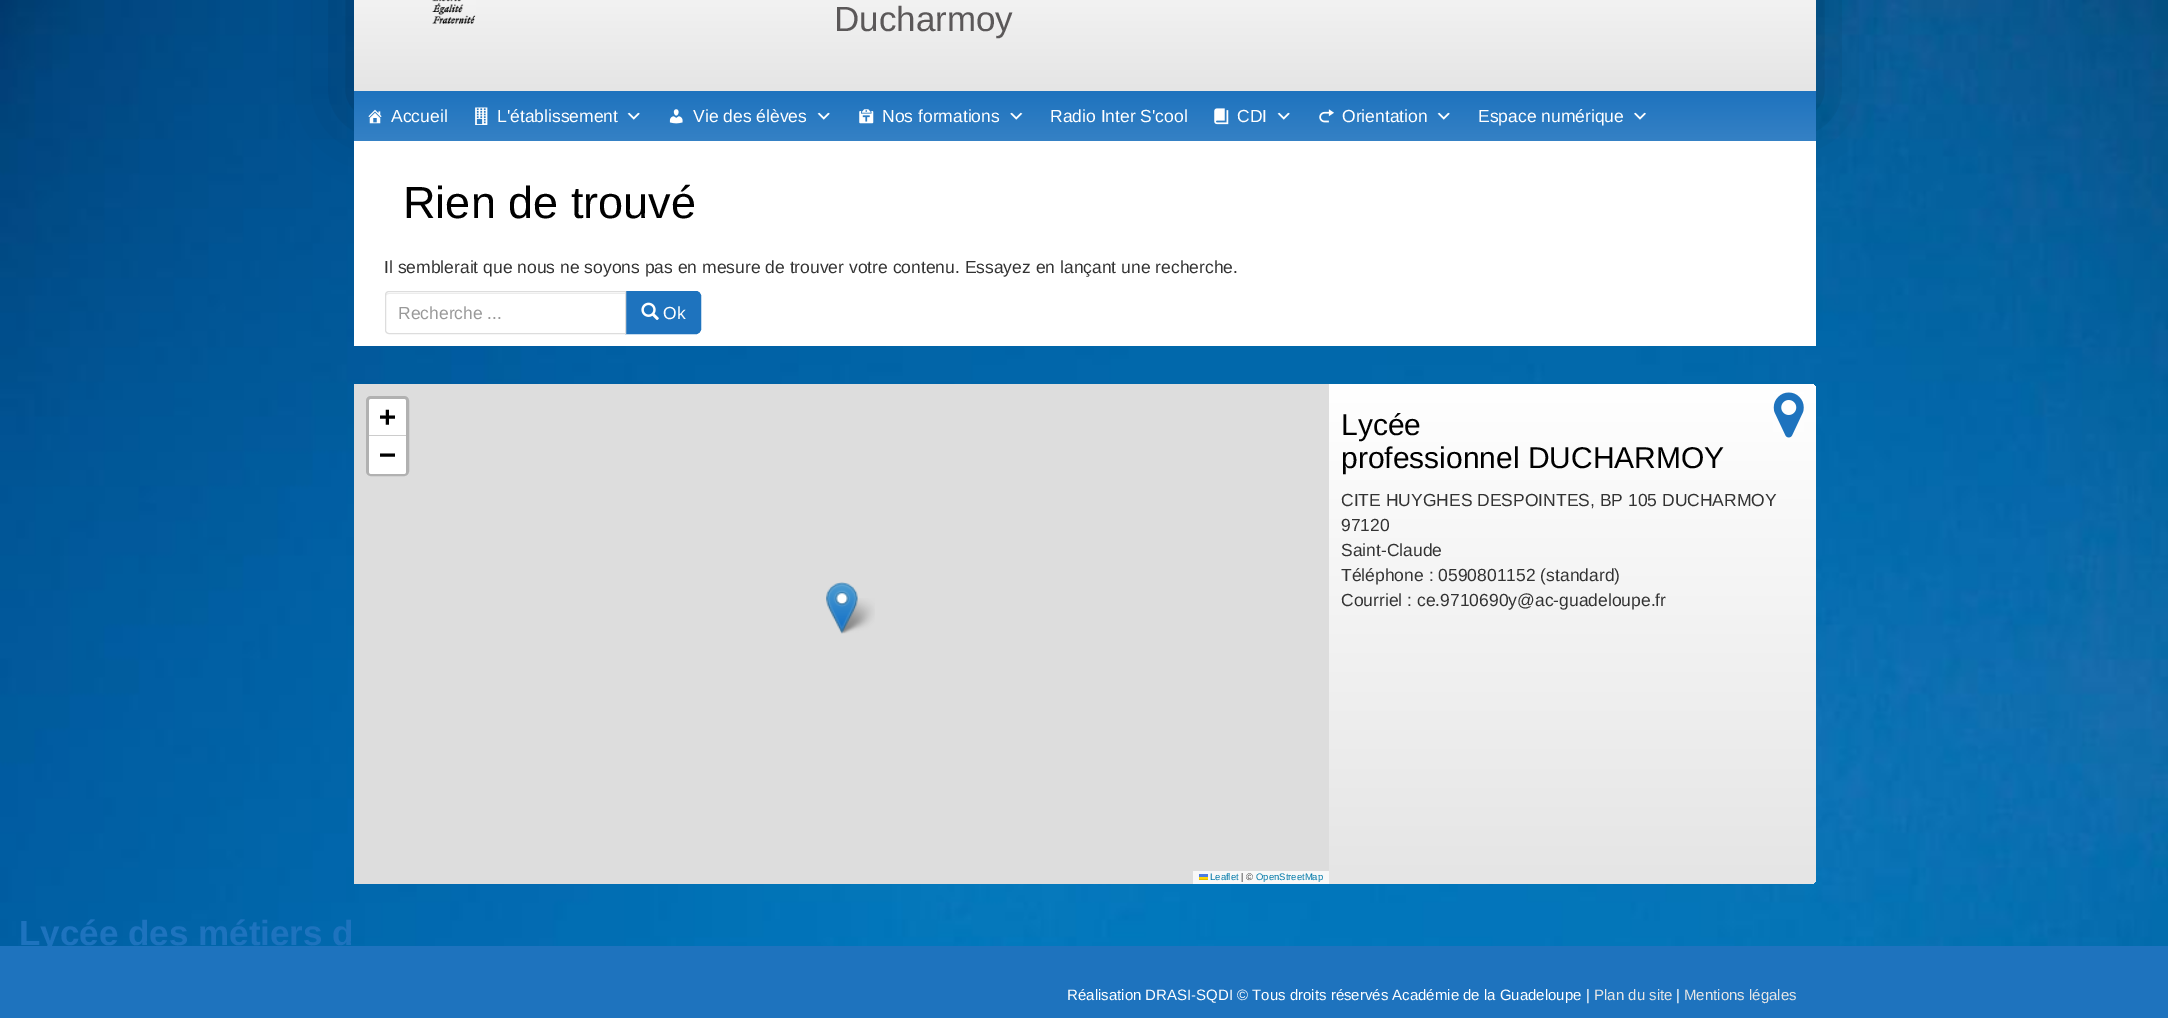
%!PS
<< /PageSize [2168 1018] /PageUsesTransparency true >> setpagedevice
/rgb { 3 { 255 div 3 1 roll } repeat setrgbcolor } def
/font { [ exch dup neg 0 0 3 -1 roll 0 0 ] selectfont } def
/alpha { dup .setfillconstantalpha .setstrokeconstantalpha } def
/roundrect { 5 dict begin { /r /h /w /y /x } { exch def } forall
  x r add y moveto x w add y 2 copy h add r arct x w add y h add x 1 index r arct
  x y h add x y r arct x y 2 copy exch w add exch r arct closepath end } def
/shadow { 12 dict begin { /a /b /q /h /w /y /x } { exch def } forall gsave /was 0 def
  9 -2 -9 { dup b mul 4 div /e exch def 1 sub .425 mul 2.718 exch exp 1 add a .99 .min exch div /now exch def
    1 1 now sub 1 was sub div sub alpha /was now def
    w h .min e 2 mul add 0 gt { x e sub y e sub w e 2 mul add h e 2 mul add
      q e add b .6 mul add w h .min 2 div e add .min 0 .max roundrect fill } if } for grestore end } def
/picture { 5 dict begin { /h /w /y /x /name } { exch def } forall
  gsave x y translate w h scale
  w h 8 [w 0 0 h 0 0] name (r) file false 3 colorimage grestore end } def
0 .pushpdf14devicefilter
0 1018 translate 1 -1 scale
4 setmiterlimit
255 255 255 rgb
0 0 2168 1018 rectfill
(img/1.rgb) 0 0 2168 946 picture
0 0 0 rgb
354 -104 1462 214 0 34.5 0.3 shadow
gsave 354 0 moveto 1816 0 lineto 1816 91 lineto 354 91 lineto closepath clip newpath
<< /ShadingType 2 /ColorSpace /DeviceRGB /Coords [1085 -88 1085 91] /Extend [true true] /Function << /FunctionType 2 /Domain [0 1] /C0 [1 1 1] /C1 [0.898 0.898 0.898] /N 1 >> >> shfill grestore
(img/2.rgb) 432 0 44 24 picture
gsave 354 91 moveto 1816 91 lineto 1816 141 lineto 354 141 lineto closepath clip newpath
<< /ShadingType 2 /ColorSpace /DeviceRGB /Coords [1085 91 1085 141] /Extend [true true] /Function << /FunctionType 2 /Domain [0 1] /C0 [0.118 0.451 0.745] /C1 [0.208 0.506 0.773] /N 1 >> >> shfill grestore
(img/3.rgb) 368 109 14 15 picture
(img/4.rgb) 475 107 13 18 picture
(img/5.rgb) 627 112 13 8 picture
(img/6.rgb) 669 109 14 15 picture
(img/5.rgb) 817 112 13 8 picture
(img/7.rgb) 859 109 15 15 picture
(img/8.rgb) 1010 112 13 8 picture
(img/9.rgb) 1214 108 15 17 picture
(img/5.rgb) 1277 112 13 8 picture
(img/10.rgb) 1319 109 15 14 picture
(img/5.rgb) 1437 112 13 8 picture
(img/11.rgb) 1634 112 12 8 picture
255 255 255 rgb
354 141 1462 205 rectfill
30 115 190 rgb
625.5 291.5 moveto 696 291.5 lineto 698.5 291.5 700.5 293.5 700.5 296 curveto 700.5 329 lineto 700.5 331.5 698.5 333.5 696 333.5 curveto 625.5 333.5 lineto closepath gsave fill grestore
stroke
255 255 255 rgb
389 291 moveto 626 291 lineto 626 334 lineto 389 334 lineto 387 334 385 332 385 330 curveto 385 295 lineto 385 293 387 291 389 291 curveto closepath fill
236 236 236 rgb
389 294 moveto 625 294 lineto 625 293 lineto 388 293 lineto 386 294 lineto 386 296 lineto 386 295 387 294 389 294 curveto closepath fill
221 221 221 rgb
389 291.5 moveto 625.5 291.5 lineto 625.5 333.5 lineto 389 333.5 lineto 387 333.5 385.5 332 385.5 330 curveto 385.5 295 lineto 385.5 293 387 291.5 389 291.5 curveto closepath stroke
(img/12.rgb) 641 302 18 18 picture
gsave 354 384 1462 500 6 roundrect clip newpath
<< /ShadingType 2 /ColorSpace /DeviceRGB /Coords [1085 384 1085 884] /Extend [true true] /Function << /FunctionType 2 /Domain [0 1] /C0 [1 1 1] /C1 [0.898 0.898 0.898] /N 1 >> >> shfill grestore
354 384 975 500 rectfill
177 177 177 rgb
3 setlinewidth
367.5 397.5 40 77 3.5 roundrect stroke
255 255 255 rgb
371.5 399 moveto 403.5 399 lineto 405 399 406 400 406 401.5 curveto 406 436 lineto 369 436 lineto 369 401.5 lineto 369 400 370 399 371.5 399 curveto closepath fill
204 204 204 rgb
369 435 37 1 rectfill
255 255 255 rgb
369 436 moveto 406 436 lineto 406 471.5 lineto 406 473 405 474 403.5 474 curveto 371.5 474 lineto 370 474 369 473 369 471.5 curveto closepath fill
[
  [1193 871 136 13 248 248 248]
  [1199 874 9 3 76 123 225]
  [1199 877 9 2 255 213 0]
  [1199 879 9 1 224 188 0]
] { aload pop rgb rectfill } forall
(img/14.rgb) 837 598 38 36 picture
(img/13.rgb) 826 582 32 52 picture
(img/15.rgb) 1773 392 31 46 picture
30 115 190 rgb
0 946 2168 72 rectfill
/LiberationSans-Regular 35 font
91 88 89 rgb
834 31 moveto (Ducharmoy) show
/LiberationSans-Regular 17.5 font
255 255 255 rgb
[
  [(Accueil) 391 122]
  [(L'établissement) 497 122]
  [(Vie des élèves) 693 122]
  [(Nos formations) 882 122]
  [(Radio Inter S'cool) 1050 122]
  [(CDI) 1237 122]
  [(Orientation) 1342 122]
  [(Espace numérique) 1478 122]
] { aload pop moveto show } forall
/LiberationSans-Regular 45 font
0 0 0 rgb
403 218 moveto (Rien de trouvé) show
/LiberationSans-Regular 17.5 font
51 51 51 rgb
384 273 moveto (Il semblerait que nous ne soyons pas en mesure de trouver votre contenu. Essayez en lançant une recherche.) show
153 153 153 rgb
398 319 moveto (Recherche ...) show
255 255 255 rgb
663 319 moveto (Ok) show
/DejaVuSansMono-Bold 28 font
0 0 0 rgb
379 426 moveto (+) show
379 464 moveto (−) show
/LiberationSans-Regular 9.5 font
0 120 168 rgb
1210 880 moveto (Leaflet) show
51 51 51 rgb
1241 880 moveto (| ©) show
0 120 168 rgb
1256 880 moveto (OpenStreetMap) show
/LiberationSans-Regular 30 font
0 0 0 rgb
1341 435 moveto (Lycée) show
1341 468 moveto (professionnel DUCHARMOY) show
/LiberationSans-Regular 17.5 font
51 51 51 rgb
[
  [(CITE HUYGHES DESPOINTES, BP 105 DUCHARMOY) 1341 506]
  [(97120) 1341 531]
  [(Saint-Claude) 1341 556]
  [(Téléphone : 0590801152 \(standard\)) 1341 581]
  [(Courriel : ce.9710690y@ac-guadeloupe.fr) 1341 606]
] { aload pop moveto show } forall
/LiberationSans-Bold 35 font
30 115 190 rgb
19 945 moveto (Lycée des métiers d) show
/LiberationSans-Regular 15 font
255 255 255 rgb
1067 1000 moveto (Réalisation DRASI-SQDI © Tous droits réservés Académie de la Guadeloupe |) show
229 229 229 rgb
1594 1000 moveto (Plan du site) show
255 255 255 rgb
1676 1000 moveto (|) show
229 229 229 rgb
1684 1000 moveto (Mentions légales) show
.poppdf14devicefilter showpage
